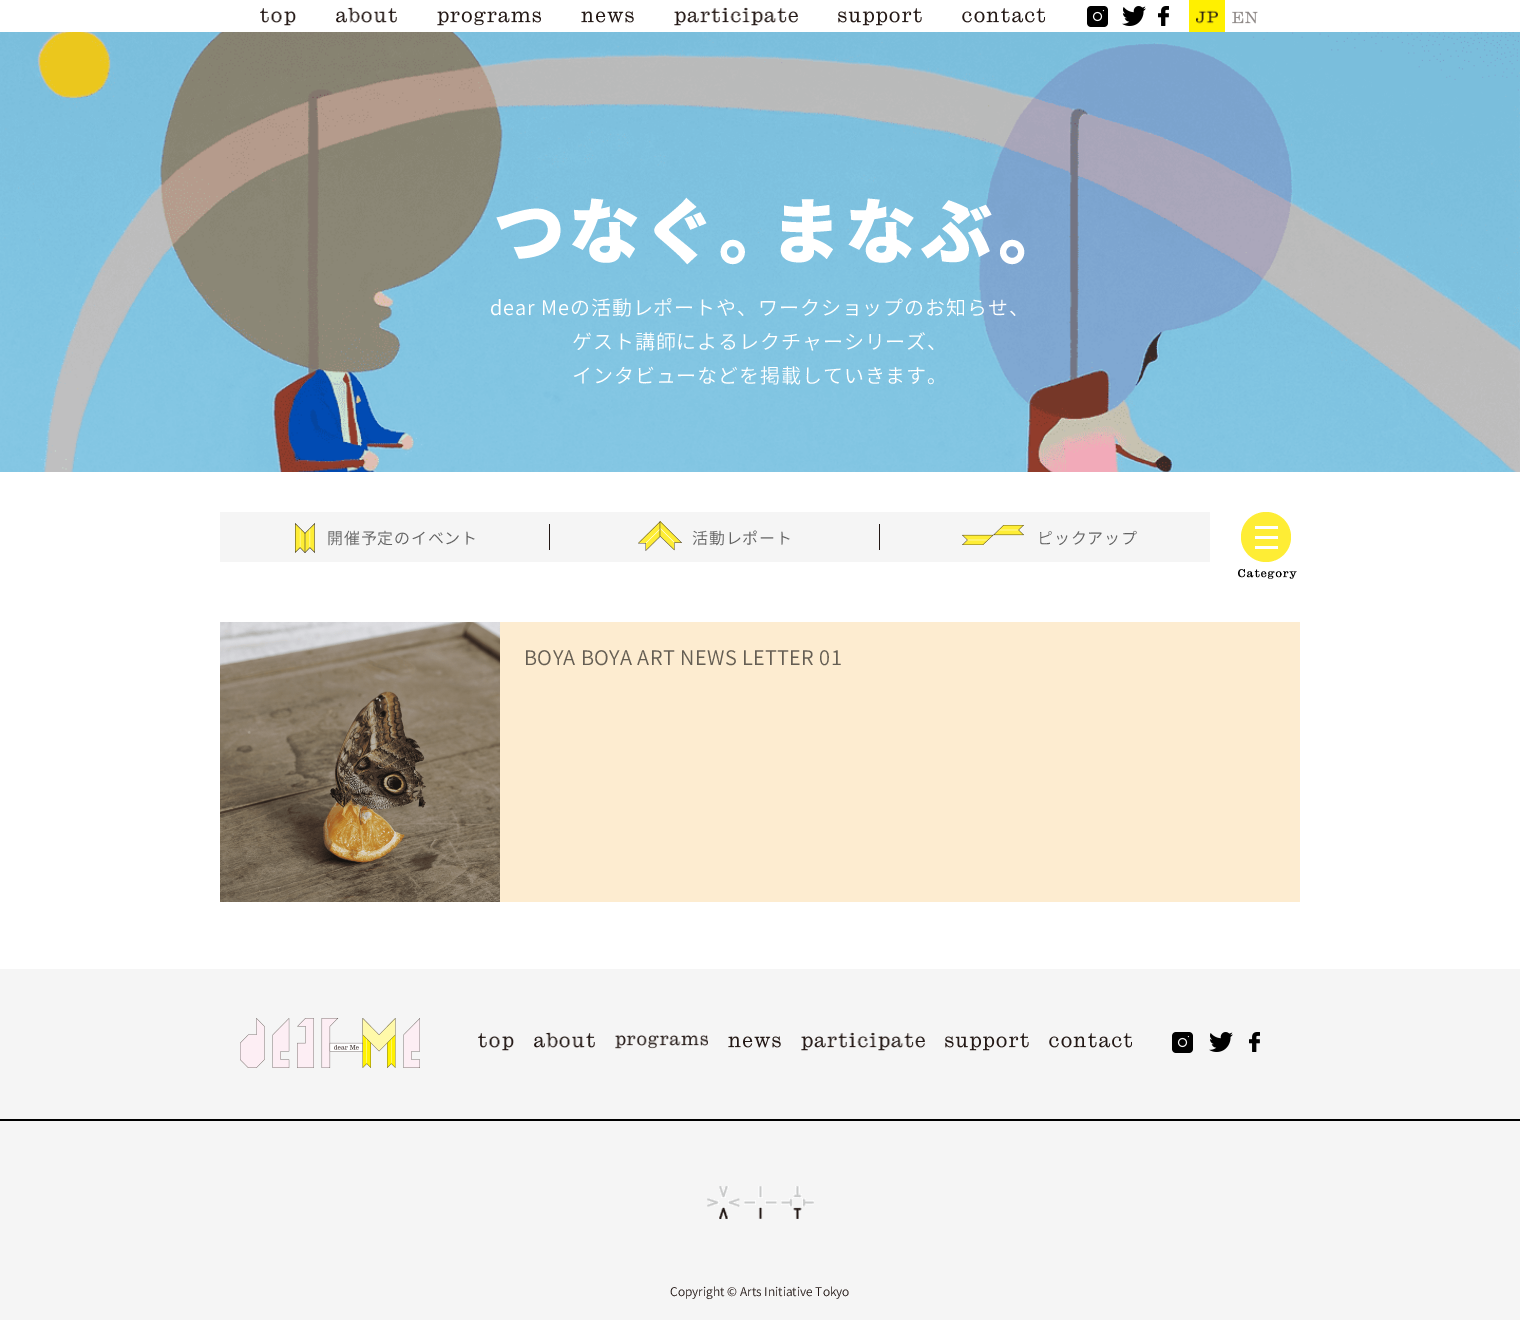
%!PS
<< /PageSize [1520 1320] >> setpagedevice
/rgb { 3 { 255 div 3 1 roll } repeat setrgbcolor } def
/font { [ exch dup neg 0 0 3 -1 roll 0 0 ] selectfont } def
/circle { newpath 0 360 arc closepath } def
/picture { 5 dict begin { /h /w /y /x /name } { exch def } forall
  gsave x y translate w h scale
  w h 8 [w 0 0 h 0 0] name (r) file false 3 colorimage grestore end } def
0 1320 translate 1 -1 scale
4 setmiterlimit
255 255 255 rgb
0 0 1520 1320 rectfill
(img/1.rgb) 260 8 36 18 picture
(img/2.rgb) 336 7 61 16 picture
(img/3.rgb) 437 11 104 15 picture
(img/4.rgb) 581 11 53 12 picture
(img/5.rgb) 674 7 124 19 picture
(img/6.rgb) 838 8 84 18 picture
(img/7.rgb) 962 8 83 15 picture
(img/8.rgb) 1087 6 21 21 picture
(img/9.rgb) 1122 6 24 20 picture
(img/10.rgb) 1158 6 11 20 picture
255 240 0 rgb
1189 0 36 32 rectfill
(img/11.rgb) 1196 10 22 14 picture
(img/12.rgb) 1232 11 26 13 picture
(img/13.rgb) 0 32 1520 440 picture
(img/14.rgb) 496 197 529 68 picture
245 245 245 rgb
220 512 990 50 rectfill
(img/15.rgb) 295 523 20 30 picture
35 24 21 rgb
549 524 1 26 rectfill
(img/16.rgb) 638 521 44 30 picture
879 524 1 26 rectfill
(img/17.rgb) 962 525 62 20 picture
254 237 53 rgb
1266 537 25 circle fill
[
  [1255 526 23 3 255 255 255]
  [1255 536 23 3 255 255 255]
  [1255 546 23 3 255 255 255]
] { aload pop rgb rectfill } forall
(img/18.rgb) 1238 569 59 10 picture
253 236 208 rgb
500 622 800 280 rectfill
(img/19.rgb) 220 622 280 280 picture
245 245 245 rgb
0 969 1520 351 rectfill
(img/20.rgb) 240 1018 180 50 picture
(img/21.rgb) 478 1033 36 18 picture
(img/22.rgb) 534 1032 61 16 picture
(img/23.rgb) 615 1035 93 14 picture
(img/24.rgb) 728 1036 53 12 picture
(img/25.rgb) 801 1032 124 19 picture
(img/26.rgb) 945 1033 84 18 picture
(img/27.rgb) 1049 1033 83 15 picture
(img/28.rgb) 1172 1032 21 21 picture
(img/29.rgb) 1209 1032 24 20 picture
(img/30.rgb) 1249 1032 11 20 picture
0 0 0 rgb
0 1119 1520 2 rectfill
(img/31.rgb) 707 1186 107 33 picture
/NotoSansJP-Light 20 font
255 255 255 rgb
490 315 moveto 0.9 0 (dear Meの活動レポートや、ワークショップのお知らせ、) ashow
572 349 moveto 0.9 0 (ゲスト講師によるレクチャーシリーズ、) ashow
572 383 moveto 0.9 0 (インタビューなどを掲載していきます。) ashow
/NotoSansJP-Light 16 font
98 98 98 rgb
327 544 moveto 0.75 0 (開催予定のイベント) ashow
692 544 moveto 0.75 0 (活動レポート) ashow
1037 544 moveto 0.75 0 (ピックアップ) ashow
/NotoSansJP-Light 20 font
101 94 83 rgb
524 665 moveto 0.4 0 (BOYA BOYA ART NEWS LETTER 01) ashow
/NotoSansJP-Light 12 font
35 24 21 rgb
670 1296 moveto (Copyright © Arts Initiative Tokyo) show
showpage
